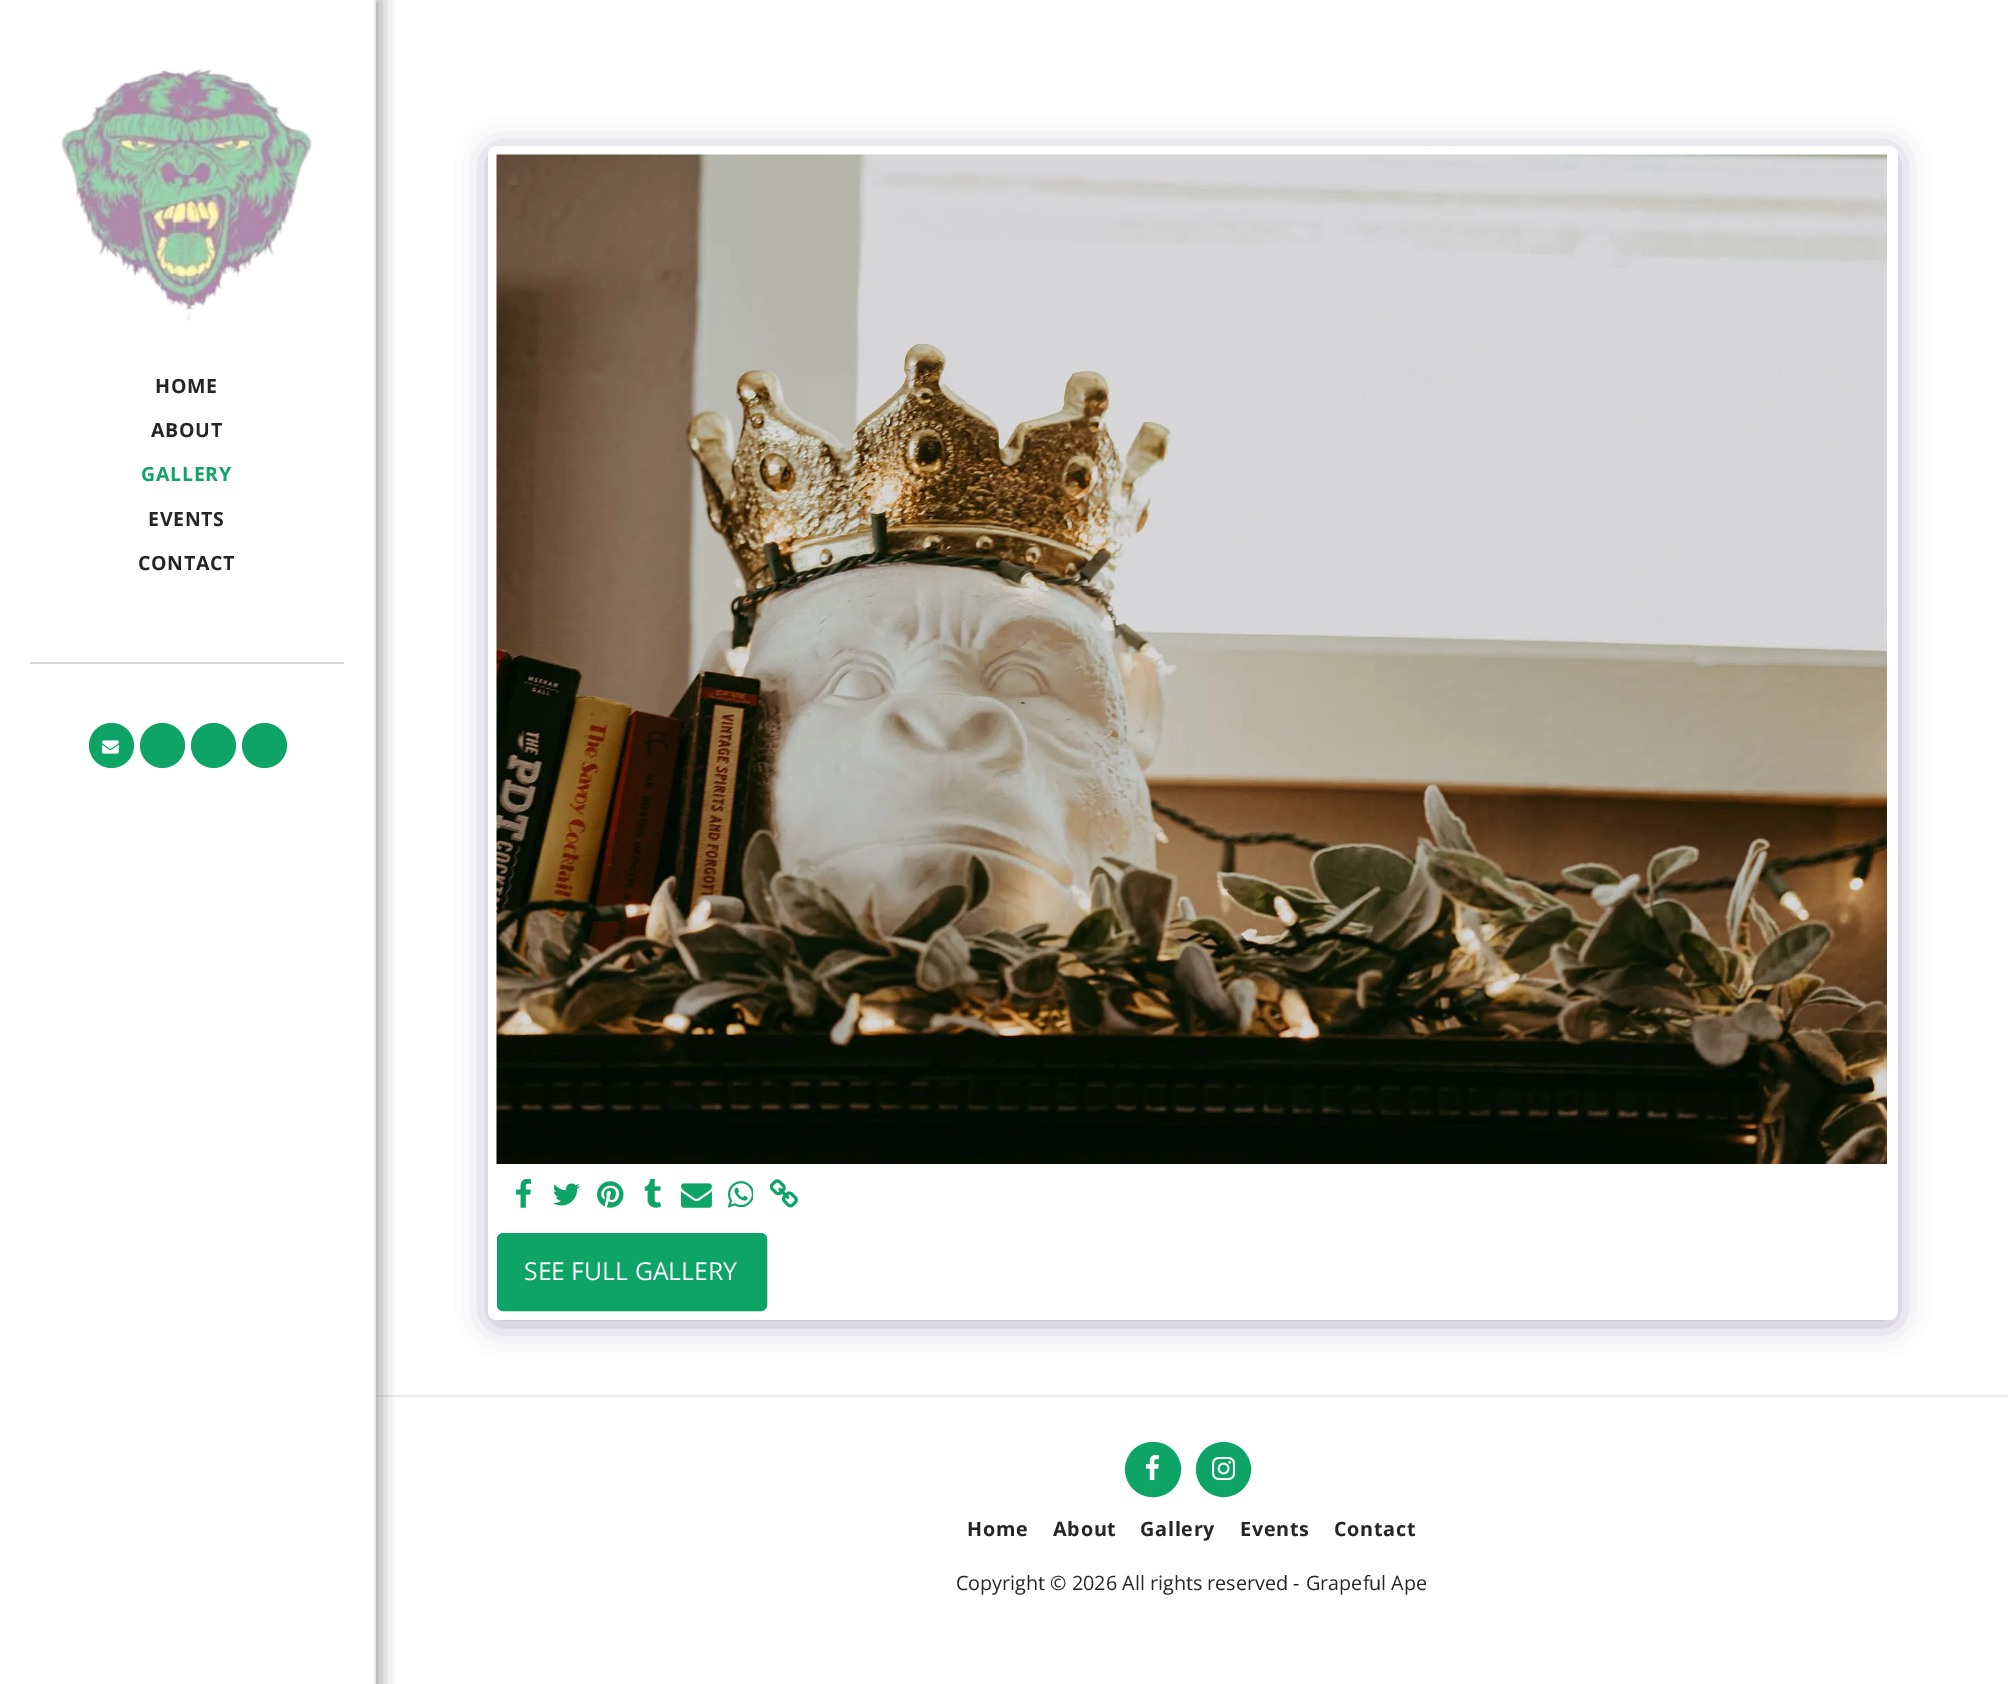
%!PS
<< /PageSize [2008 1684] /PageUsesTransparency true >> setpagedevice
/rgb { 3 { 255 div 3 1 roll } repeat setrgbcolor } def
/font { [ exch dup neg 0 0 3 -1 roll 0 0 ] selectfont } def
/alpha { dup .setfillconstantalpha .setstrokeconstantalpha } def
/circle { newpath 0 360 arc closepath } def
/roundrect { 5 dict begin { /r /h /w /y /x } { exch def } forall
  x r add y moveto x w add y 2 copy h add r arct x w add y h add x 1 index r arct
  x y h add x y r arct x y 2 copy exch w add exch r arct closepath end } def
/shadow { 12 dict begin { /a /b /q /h /w /y /x } { exch def } forall gsave /was 0 def
  9 -2 -9 { dup b mul 4 div /e exch def 1 sub .425 mul 2.718 exch exp 1 add a .99 .min exch div /now exch def
    1 1 now sub 1 was sub div sub alpha /was now def
    w h .min e 2 mul add 0 gt { x e sub y e sub w e 2 mul add h e 2 mul add
      q e add b .6 mul add w h .min 2 div e add .min 0 .max roundrect fill } if } for grestore end } def
/picture { 5 dict begin { /h /w /y /x /name } { exch def } forall
  gsave x y translate w h scale
  w h 8 [w 0 0 h 0 0] name (r) file false 3 colorimage grestore end } def
0 .pushpdf14devicefilter
0 1684 translate 1 -1 scale
4 setmiterlimit
255 255 255 rgb
0 0 2008 1684 rectfill
235 235 235 rgb
375 1395 1633 2 rectfill
gsave
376 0 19 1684 rectclip
0 0 0 rgb
0 -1 381 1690 0 9 0.35 shadow
grestore
374 0 2 1684 rectfill
(img/1.rgb) 61 68 251 253 picture
211 211 211 rgb
30 662 314 2 rectfill
13 164 102 rgb
111.5 745.5 22.5 circle fill
(img/2.rgb) 102 740 17 14 picture
162.5 745.5 22.5 circle fill
213.5 745.5 22.5 circle fill
264.5 745.5 22.5 circle fill
77 63 122 rgb
488 150 1410 1175 9 15 0.4 shadow
255 255 255 rgb
488 146 1410 1174 9 roundrect fill
(img/3.rgb) 496 154 1391 1010 picture
(img/4.rgb) 516 1179 16 29 picture
(img/5.rgb) 553 1183 27 23 picture
(img/6.rgb) 597 1181 27 27 picture
(img/7.rgb) 644 1179 18 29 picture
(img/8.rgb) 681 1183 31 25 picture
(img/9.rgb) 728 1181 25 27 picture
(img/10.rgb) 770 1179 28 29 picture
13 164 102 rgb
498 1234 268 76 5 roundrect gsave fill grestore
2 setlinewidth
stroke
1126 1443 54 53 26.5 roundrect gsave fill grestore
stroke
(img/11.rgb) 1145 1455 14 26 picture
1223.5 1469.5 26.5 circle gsave fill grestore
stroke
(img/12.rgb) 1212 1456 23 25 picture
/OpenSans-Bold 19.5 font
37 37 37 rgb
155 393 moveto 0.75 0 (HOME) ashow
151 437 moveto 0.75 0 (ABOUT) ashow
13 164 102 rgb
141 481 moveto 0.75 0 (GALLERY) ashow
37 37 37 rgb
148 526 moveto 0.75 0 (EVENTS) ashow
138 570 moveto 0.75 0 (CONTACT) ashow
/OpenSans-Regular 24.75 font
255 255 255 rgb
524 1280 moveto (SEE FULL GALLERY) show
/OpenSans-Bold 19.75 font
37 37 37 rgb
967 1536 moveto 0.75 0 (Home) ashow
1053 1536 moveto 0.75 0 (About) ashow
1140 1536 moveto 0.75 0 (Gallery) ashow
1240 1536 moveto 0.75 0 (Events) ashow
1334 1536 moveto 0.75 0 (Contact) ashow
/OpenSans-Regular 19.75 font
956 1590 moveto (Copyright © 2026 All rights reserved -) show
1306 1590 moveto (Grapeful Ape) show
.poppdf14devicefilter showpage
